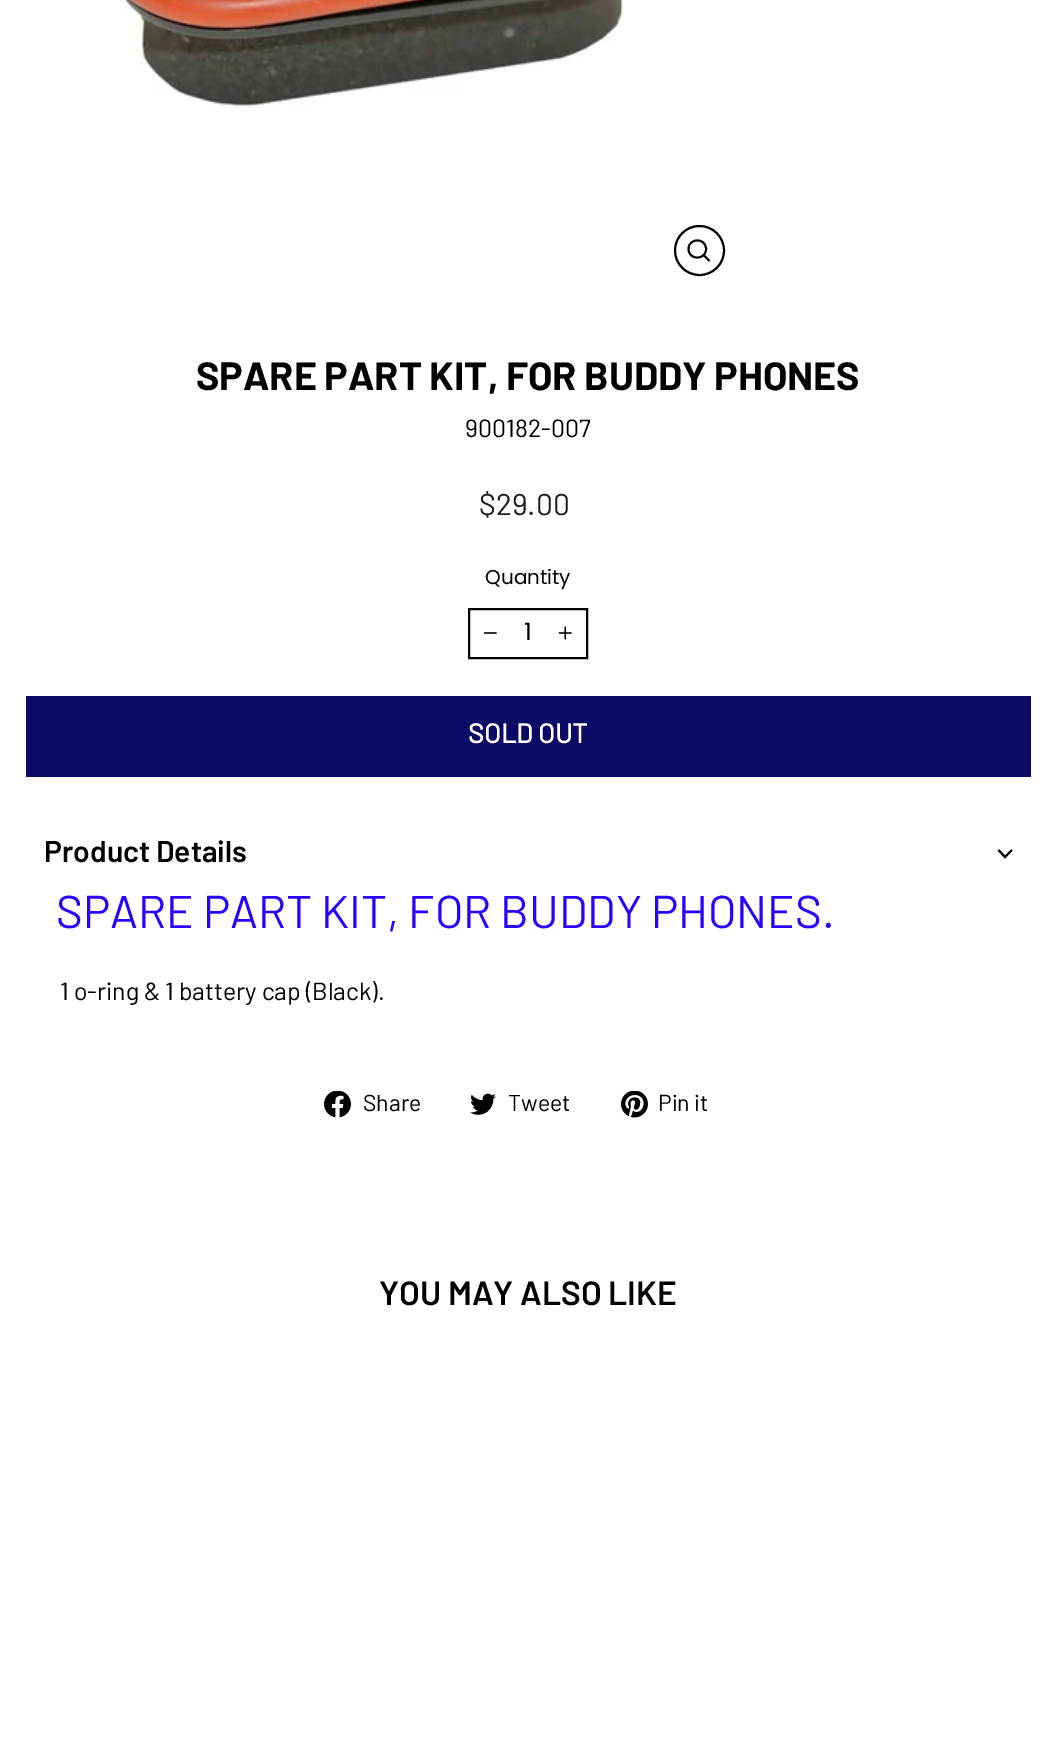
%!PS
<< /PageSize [1055 1756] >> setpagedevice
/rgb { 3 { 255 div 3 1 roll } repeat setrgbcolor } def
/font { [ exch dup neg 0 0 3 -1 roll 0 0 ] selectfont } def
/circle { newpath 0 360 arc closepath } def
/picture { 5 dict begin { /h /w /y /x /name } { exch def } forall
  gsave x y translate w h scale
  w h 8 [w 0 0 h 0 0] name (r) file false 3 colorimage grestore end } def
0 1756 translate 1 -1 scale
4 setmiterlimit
255 255 255 rgb
0 0 1055 1756 rectfill
(img/1.rgb) 120 0 503 108 picture
0 0 0 rgb
2 setlinewidth
699.5 250.5 24.5 circle stroke
1.9 setlinewidth
706 249 moveto 706 260.5 688.5 260.5 688.5 249 curveto 688.5 237.5 706 237.5 706 249 curveto closepath 709.5 261 moveto 703.5 255 lineto stroke
2 setlinewidth
469 609 118 49 rectstroke
(img/2.rgb) 483 632 14 2 picture
(img/3.rgb) 558 626 14 14 picture
11 11 101 rgb
26 696 1005 81 rectfill
0 0 0 rgb
2.1 setlinewidth
998.5 850 moveto 1005 857 lineto 1012 850 lineto stroke
(img/4.rgb) 324 1091 27 27 picture
(img/5.rgb) 470 1093 26 22 picture
(img/6.rgb) 621 1091 27 27 picture
/Barlow-Bold 39.4 font
196 390 moveto (SPARE PART KIT, FOR BUDDY PHONES) show
/Barlow-Regular 24.8 font
465 437 moveto (900182-007) show
/Barlow-Regular 30 font
28 29 29 rgb
479 515 moveto ($29.00) show
/Poppins-Regular 20 font
0 0 0 rgb
485 584 moveto (Quantity) show
/Poppins-Regular 24 font
524 640 moveto (1) show
/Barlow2-Bold 27 font
255 255 255 rgb
468 743 moveto (SOLD OUT) show
/Barlow-SemiBold 30 font
0 0 0 rgb
44 862 moveto (Product Details) show
/Barlow-Regular 45.9 font
43 0 255 rgb
56 928 moveto (SPARE PART KIT, FOR BUDDY PHONES.) show
/Barlow-Regular 24.8 font
0 0 0 rgb
60 1000 moveto (1 o-ring & 1 battery cap \(Black\).) show
/Barlow-Regular 23 font
[
  [(Share) 363 1111]
  [(Tweet) 508 1111]
  [(Pin it) 658 1111]
] { aload pop moveto show } forall
/Barlow-SemiBold 33.5 font
379 1305 moveto (YOU MAY ALSO LIKE) show
showpage
